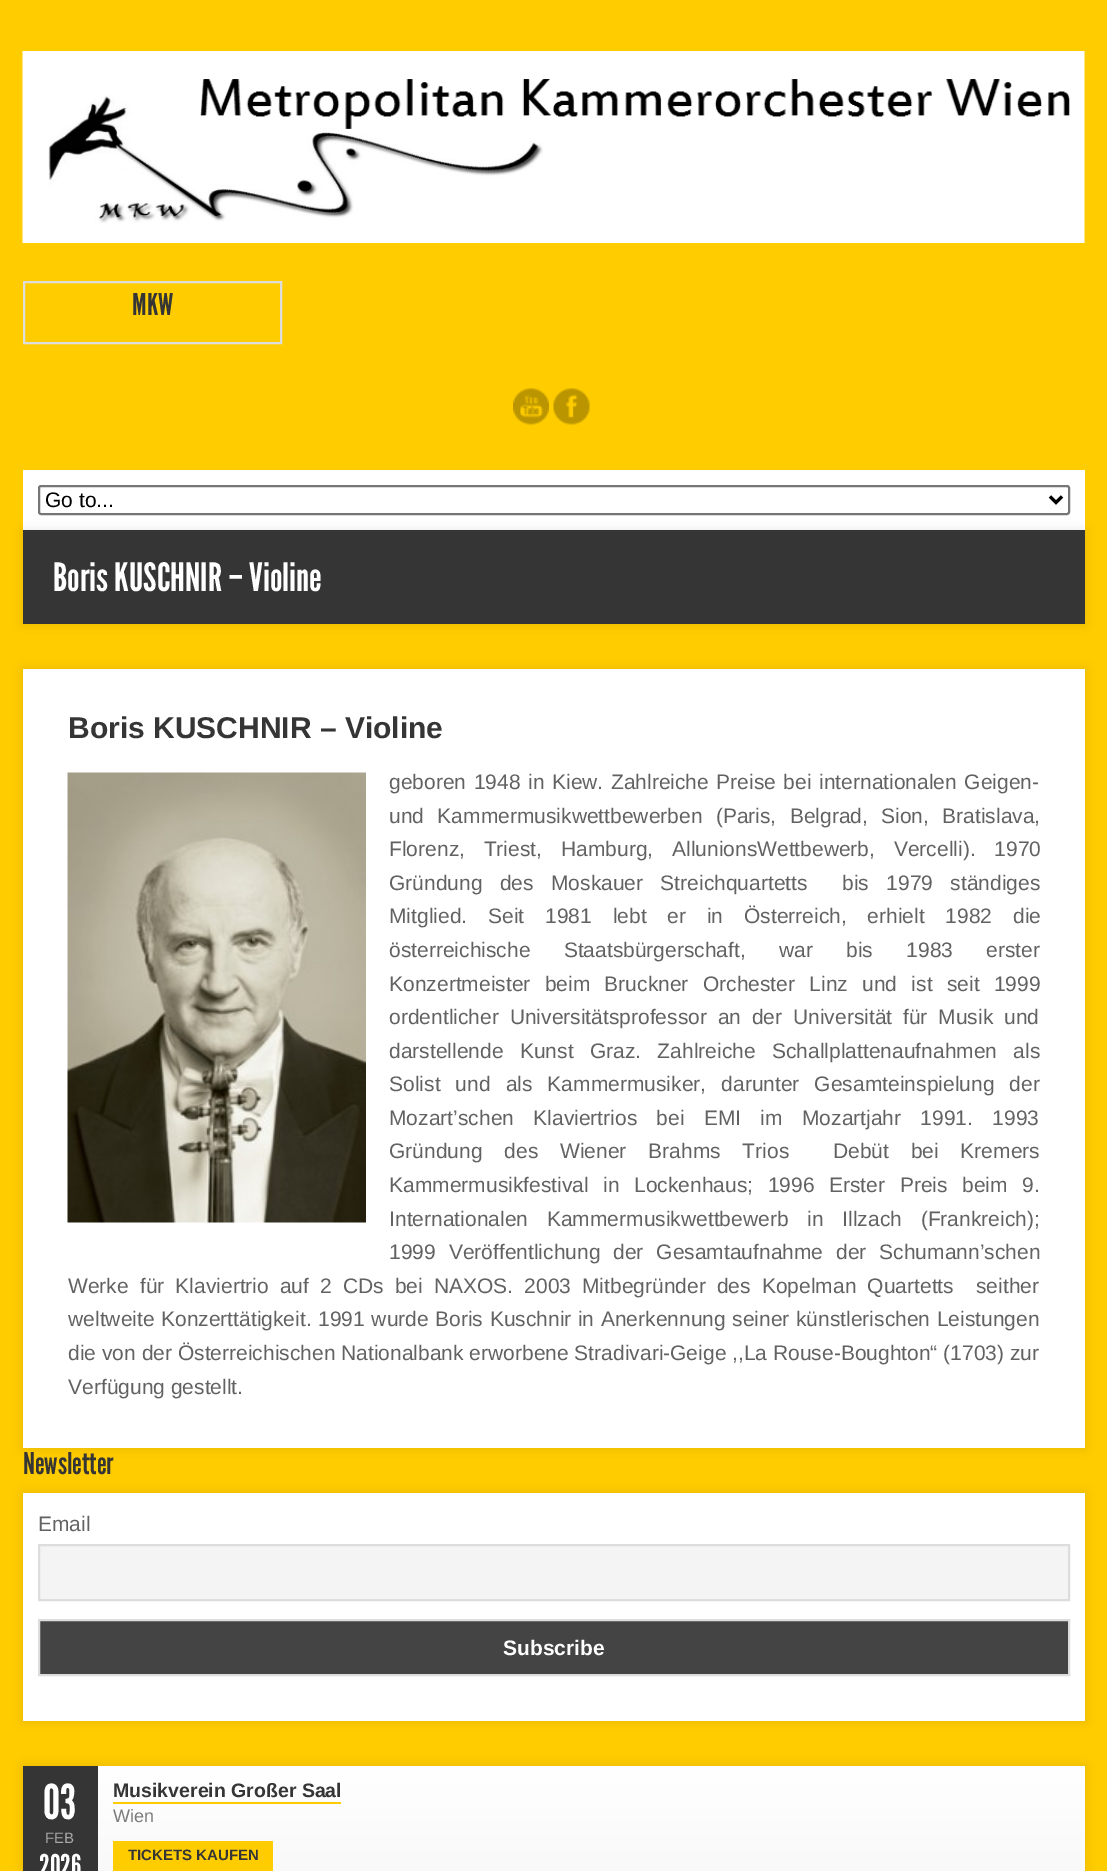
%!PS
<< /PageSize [1107 1871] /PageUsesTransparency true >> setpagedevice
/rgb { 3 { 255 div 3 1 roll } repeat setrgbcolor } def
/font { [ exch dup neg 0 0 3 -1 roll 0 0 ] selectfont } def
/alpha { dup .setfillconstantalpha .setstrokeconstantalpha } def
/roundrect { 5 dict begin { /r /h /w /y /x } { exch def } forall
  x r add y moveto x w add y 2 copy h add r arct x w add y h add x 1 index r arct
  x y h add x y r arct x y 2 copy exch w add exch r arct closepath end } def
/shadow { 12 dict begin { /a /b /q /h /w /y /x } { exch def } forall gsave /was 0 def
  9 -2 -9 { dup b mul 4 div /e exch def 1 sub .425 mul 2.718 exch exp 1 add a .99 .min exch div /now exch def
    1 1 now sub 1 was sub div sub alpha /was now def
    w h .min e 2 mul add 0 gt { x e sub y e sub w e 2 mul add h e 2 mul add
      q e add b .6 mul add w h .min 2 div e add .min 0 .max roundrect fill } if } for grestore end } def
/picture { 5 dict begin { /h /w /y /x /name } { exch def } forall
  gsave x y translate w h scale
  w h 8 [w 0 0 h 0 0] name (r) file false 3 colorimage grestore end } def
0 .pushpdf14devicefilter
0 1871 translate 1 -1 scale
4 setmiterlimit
255 204 0 rgb
0 0 1107 1871 rectfill
(img/1.rgb) 22 51 1063 192 picture
221 221 221 rgb
2 setlinewidth
24 282 257 61 rectstroke
(img/2.rgb) 513 388 36 37 picture
(img/3.rgb) 553 388 37 37 picture
255 255 255 rgb
23 470 1062 60 rectfill
118 118 118 rgb
39 486 1030 28 2 roundrect stroke
0 0 0 rgb
3 setlinewidth
1050 496.5 moveto 1056 502.5 lineto 1062 496.5 lineto stroke
23 530 1062 94 0 5 0.1 shadow
53 53 53 rgb
23 530 1062 94 rectfill
0 0 0 rgb
23 669 1062 779 0 5 0.1 shadow
255 255 255 rgb
23 669 1062 779 rectfill
(img/4.rgb) 67 772 299 451 picture
0 0 0 rgb
23 1493 1062 228 0 5 0.1 shadow
255 255 255 rgb
23 1493 1062 228 rectfill
244 244 244 rgb
39 1545 moveto 1069 1545 lineto 1069 1600 lineto 39 1600 lineto closepath gsave fill grestore
221 221 221 rgb
2 setlinewidth
stroke
68 68 68 rgb
39 1620 moveto 1069 1620 lineto 1069 1675 lineto 39 1675 lineto closepath gsave fill grestore
221 221 221 rgb
stroke
0 0 0 rgb
23 1766 1062 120 0 5 0.1 shadow
gsave 98 1766 moveto 1085 1766 lineto 1085 1871 lineto 98 1871 lineto closepath clip newpath
<< /ShadingType 2 /ColorSpace /DeviceRGB /Coords [554 1766 554 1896] /Extend [true true] /Function << /FunctionType 2 /Domain [0 1] /C0 [1 1 1] /C1 [0.969 0.969 0.969] /N 1 >> >> shfill grestore
[
  [23 1766 75 105 53 53 53]
  [113 1802 228 2 255 204 0]
  [113 1841 160 30 255 204 0]
] { aload pop rgb rectfill } forall
/LeagueGothic-Regular 30 font
53 53 53 rgb
132 315 moveto (MKW) show
/LiberationSans-Regular 21 font
0 0 0 rgb
45 507 moveto (Go to...) show
/LeagueGothic-Regular 39 font
255 255 255 rgb
53 591 moveto (Boris KUSCHNIR – Violine) show
/LiberationSans-Bold 30 font
53 53 53 rgb
68 738 moveto (Boris KUSCHNIR – Violine) show
/LiberationSans-Regular 21 font
98 98 98 rgb
389 789 moveto 1.75 0 32 (geboren 1948 in Kiew. Zahlreiche Preise bei internationalen Geigen-) widthshow
389 823 moveto 7.5 0 32 (und Kammermusikwettbewerben \(Paris, Belgrad, Sion, Bratislava,) widthshow
389 856 moveto 13 0 32 (Florenz, Triest, Hamburg, AllunionsWettbewerb, Vercelli\). 1970) widthshow
389 890 moveto 11.5 0 32 (Gründung des Moskauer Streichquartetts  bis 1979 ständiges) widthshow
389 923 moveto 15 0 32 (Mitglied. Seit 1981 lebt er in Österreich, erhielt 1982 die) widthshow
389 957 moveto 27.5 0 32 (österreichische Staatsbürgerschaft, war bis 1983 erster) widthshow
389 991 moveto 8.5 0 32 (Konzertmeister beim Bruckner Orchester Linz und ist seit 1999) widthshow
389 1024 moveto 5 0 32 (ordentlicher Universitätsprofessor an der Universität für Musik und) widthshow
389 1058 moveto 10.5 0 32 (darstellende Kunst Graz. Zahlreiche Schallplattenaufnahmen als) widthshow
389 1091 moveto 9.25 0 32 (Solist und als Kammermusiker, darunter Gesamteinspielung der) widthshow
389 1125 moveto 13.5 0 32 (Mozart’schen Klaviertrios bei EMI im Mozartjahr 1991. 1993) widthshow
389 1158 moveto 16 0 32 (Gründung des Wiener Brahms Trios  Debüt bei Kremers) widthshow
389 1192 moveto 8.75 0 32 (Kammermusikfestival in Lockenhaus; 1996 Erster Preis beim 9.) widthshow
389 1226 moveto 13 0 32 (Internationalen Kammermusikwettbewerb in Illzach \(Frankreich\);) widthshow
389 1259 moveto 7 0 32 (1999 Veröffentlichung der Gesamtaufnahme der Schumann’schen) widthshow
68 1293 moveto 5.25 0 32 (Werke für Klaviertrio auf 2 CDs bei NAXOS. 2003 Mitbegründer des Kopelman Quartetts  seither) widthshow
68 1326 moveto 0.75 0 32 (weltweite Konzerttätigkeit. 1991 wurde Boris Kuschnir in Anerkennung seiner künstlerischen Leistungen) widthshow
68 1360 moveto (die von der Österreichischen Nationalbank erworbene Stradivari-Geige ,,La Rouse-Boughton“ \(1703\) zur) show
68 1394 moveto (Verfügung gestellt.) show
/LeagueGothic-Regular 30 font
53 53 53 rgb
23 1474 moveto (Newsletter) show
/LiberationSans-Regular 21 font
98 98 98 rgb
38 1531 moveto (Email) show
/LiberationSans-Bold 21 font
255 255 255 rgb
503 1655 moveto (Subscribe) show
/LeagueGothic-Regular 48 font
43 1819 moveto (03) show
/LiberationSans-Regular 15 font
168 168 168 rgb
45 1843 moveto (FEB) show
/LeagueGothic-Regular 30 font
255 255 255 rgb
39 1876 moveto (2026) show
/LiberationSans-Bold 19.5 font
53 53 53 rgb
113 1797 moveto (Musikverein Großer Saal) show
/LiberationSans-Regular 18 font
124 124 124 rgb
113 1822 moveto (Wien) show
/LiberationSans-Bold 15 font
53 53 53 rgb
128 1860 moveto (TICKETS KAUFEN) show
.poppdf14devicefilter showpage
